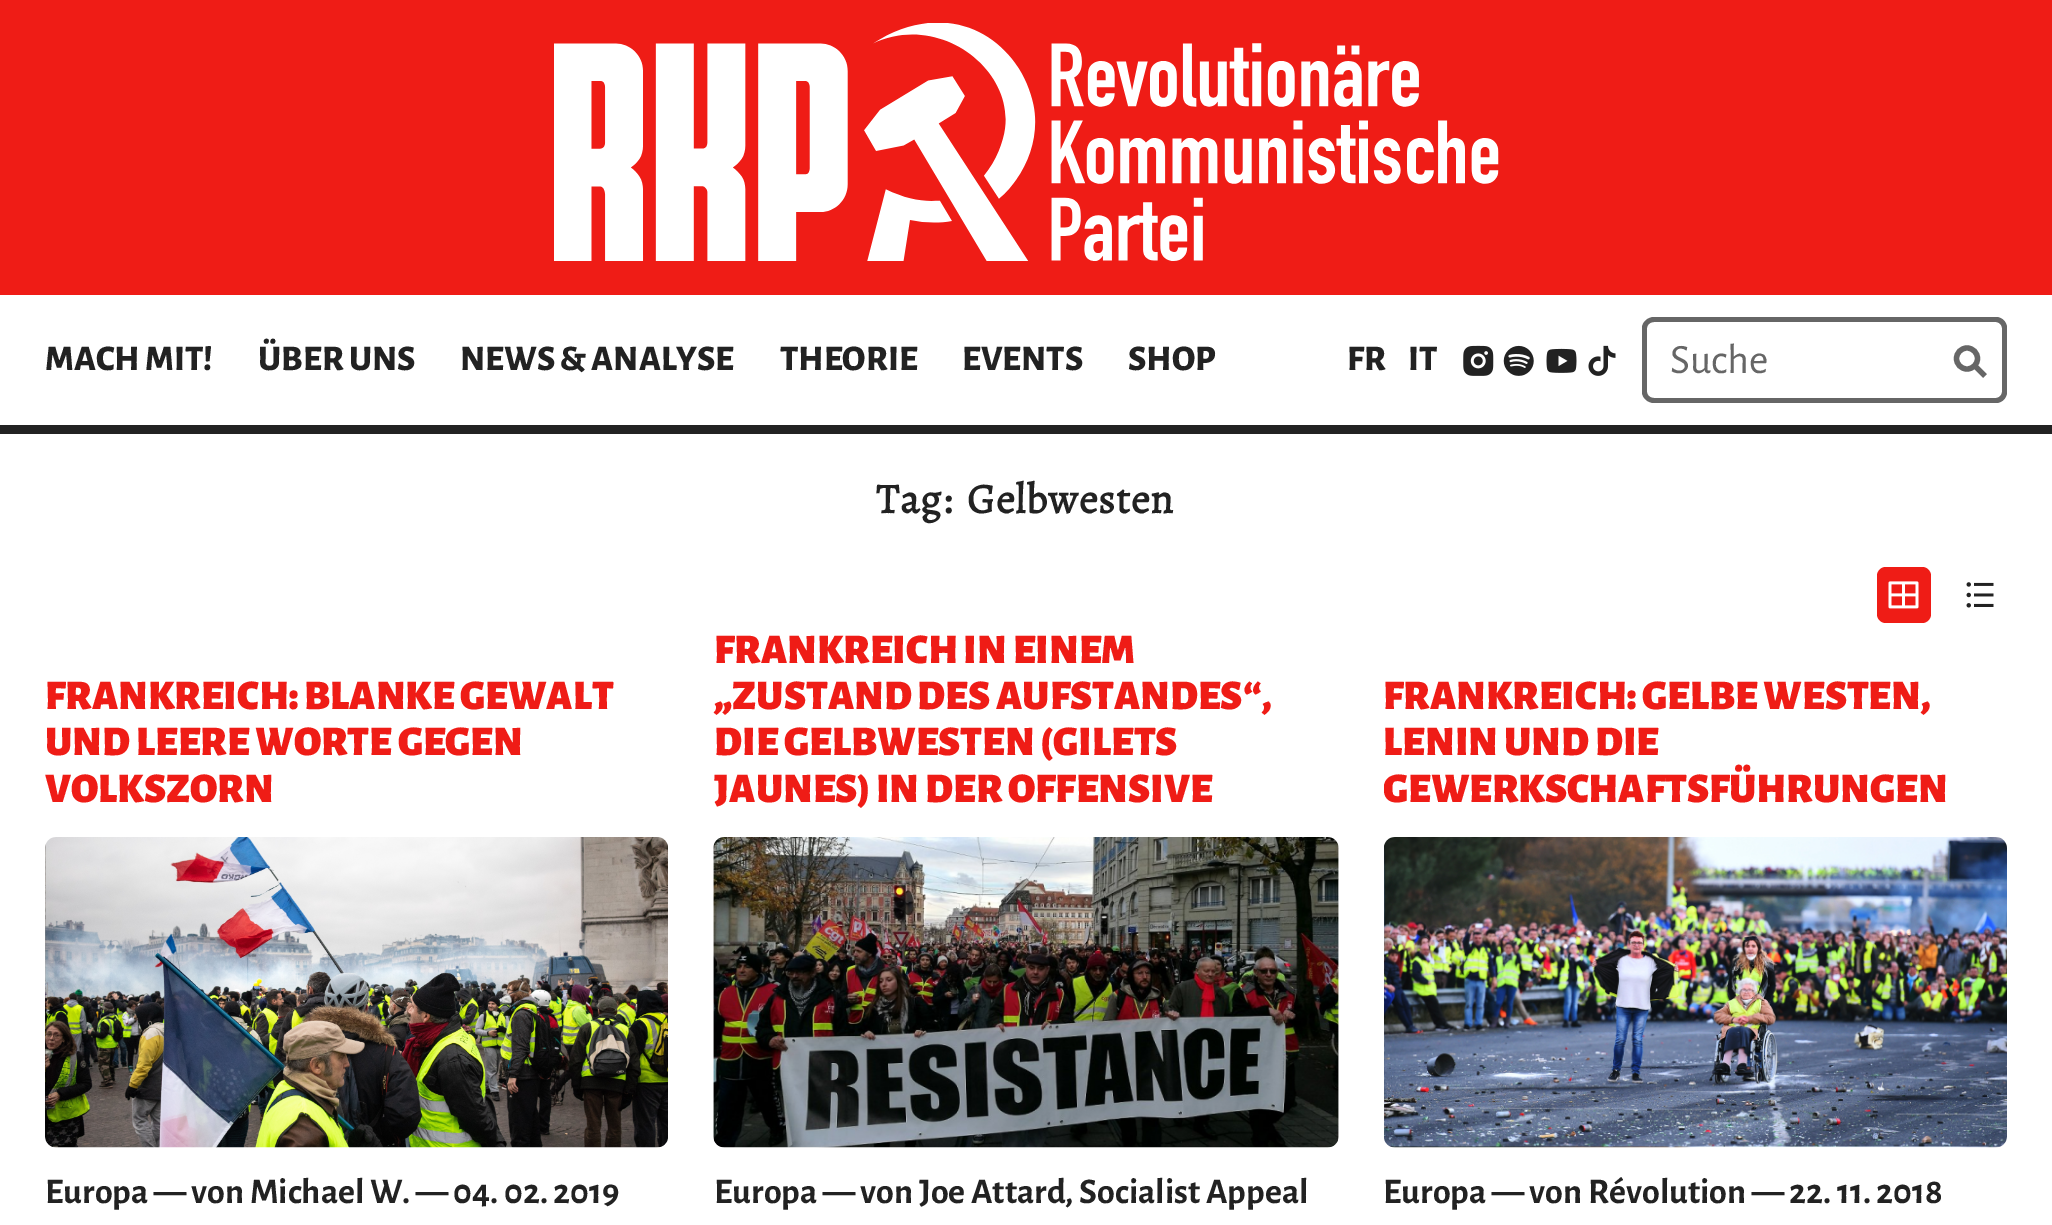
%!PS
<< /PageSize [2052 1225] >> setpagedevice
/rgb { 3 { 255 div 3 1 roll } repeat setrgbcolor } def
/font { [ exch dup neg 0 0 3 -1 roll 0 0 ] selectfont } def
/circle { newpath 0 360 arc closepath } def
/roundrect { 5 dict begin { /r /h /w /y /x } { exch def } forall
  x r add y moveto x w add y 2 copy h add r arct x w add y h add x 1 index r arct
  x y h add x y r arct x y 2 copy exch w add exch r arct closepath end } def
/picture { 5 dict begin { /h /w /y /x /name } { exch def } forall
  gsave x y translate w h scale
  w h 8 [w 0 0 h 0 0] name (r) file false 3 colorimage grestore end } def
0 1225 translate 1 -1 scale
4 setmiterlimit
255 255 255 rgb
0 0 2052 1225 rectfill
239 28 22 rgb
0 0 2052 295 rectfill
(img/1.rgb) 554 23 945 238 picture
34 34 34 rgb
0 425 2052 9 rectfill
(img/2.rgb) 1463 345 31 31 picture
(img/3.rgb) 1503 345 31 31 picture
(img/4.rgb) 1546 348 31 25 picture
(img/5.rgb) 1588 345 28 31 picture
102 102 102 rgb
1654 317 moveto 1935 317 lineto 1935 403 lineto 1654 403 lineto 1648 403 1642 398 1642 392 curveto 1642 328 lineto 1642 322 1648 317 1654 317 curveto closepath 1654 322 moveto 1935 322 lineto 1935 398 lineto 1654 398 lineto 1650 398 1647 395 1647 392 curveto 1647 328 lineto 1647 325 1650 322 1654 322 curveto closepath eofill
1935 317 moveto 1996 317 lineto 2002 317 2007 322 2007 328 curveto 2007 392 lineto 2007 398 2002 403 1996 403 curveto 1935 403 lineto closepath 1935 322 moveto 1996 322 lineto 1999 322 2002 325 2002 328 curveto 2002 392 lineto 2002 395 1999 398 1996 398 curveto 1935 398 lineto closepath eofill
5.3 setlinewidth
1967 358.5 10.5 circle stroke
1974.5 365.5 moveto 1985 376 lineto stroke
239 28 22 rgb
1877 567 54 56 9 roundrect fill
(img/6.rgb) 1888 581 31 28 picture
(img/7.rgb) 1966 582 28 26 picture
(img/8.rgb) 45 837 623 311 picture
(img/9.rgb) 713 837 626 311 picture
(img/10.rgb) 1384 837 623 311 picture
/AlegreyaSans-ExtraBold 36 font
34 34 34 rgb
[
  [(MACH MIT!) 45 370]
  [(ÜBER UNS) 258 370]
  [(NEWS & ANALYSE) 460 370]
  [(THEORIE) 780 370]
  [(EVENTS) 962 370]
  [(SHOP) 1128 370]
  [(FR) 1347 370]
  [(IT) 1408 370]
] { aload pop moveto show } forall
/AlegreyaSans-Regular 42 font
102 102 102 rgb
1670 373 moveto (Suche) show
/Alegreya-Bold 42 font
34 34 34 rgb
876 513 moveto 5 0 32 0.8 0 (Tag: Gelbwesten) awidthshow
/AlegreyaSans-Black 42 font
239 28 22 rgb
[
  [(FRANKREICH: BLANKE GEWALT) 45 709]
  [(UND LEERE WORTE GEGEN) 45 755]
  [(VOLKSZORN) 45 802]
] { aload pop moveto show } forall
/AlegreyaSans-Bold 36 font
34 34 34 rgb
45 1203 moveto (Europa — von Michael W. — 04. 02. 2019) show
/AlegreyaSans-Black 42 font
239 28 22 rgb
[
  [(FRANKREICH IN EINEM) 714 663]
  [(„ZUSTAND DES AUFSTANDES“,) 714 709]
  [(DIE GELBWESTEN \(GILETS) 714 755]
  [(JAUNES\) IN DER OFFENSIVE) 714 802]
] { aload pop moveto show } forall
/AlegreyaSans-Bold 36 font
34 34 34 rgb
714 1203 moveto (Europa — von Joe Attard, Socialist Appeal) show
/AlegreyaSans-Black 42 font
239 28 22 rgb
1383 709 moveto (FRANKREICH: GELBE WESTEN,) show
1383 755 moveto (LENIN UND DIE) show
gsave
1384 623 623 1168 rectclip
1383 802 moveto (GEWERKSCHAFTSFÜHRUNGEN) show
grestore
/AlegreyaSans-Bold 36 font
34 34 34 rgb
1383 1203 moveto (Europa — von Révolution — 22. 11. 2018) show
showpage
